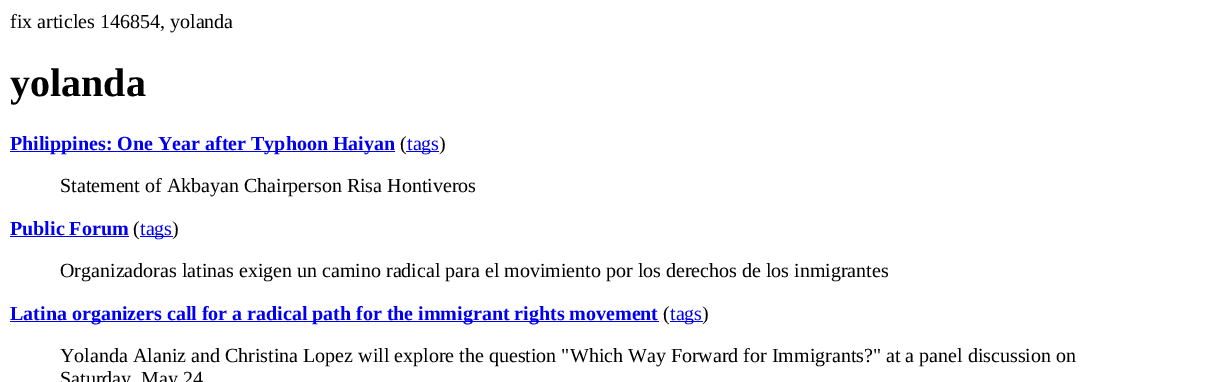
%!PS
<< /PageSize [1207 382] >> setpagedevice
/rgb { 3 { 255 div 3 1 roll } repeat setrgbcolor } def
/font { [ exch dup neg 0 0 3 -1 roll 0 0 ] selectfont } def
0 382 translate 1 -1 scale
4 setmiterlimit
255 255 255 rgb
0 0 1207 382 rectfill
[
  [10 151 385 1 0 0 238]
  [10 236 119 1 0 0 238]
  [140 236 33 1 0 0 238]
  [10 321 649 1 0 0 238]
  [670 321 33 1 0 0 238]
] { aload pop rgb rectfill } forall
/LiberationSerif-Regular 20 font
0 0 0 rgb
10 28 moveto (fix articles 146854, yolanda) show
/LiberationSerif-Bold 40 font
10 96 moveto (yolanda) show
/LiberationSerif-Bold 20 font
0 0 238 rgb
10 150 moveto (Philippines: One Year after Typhoon Haiyan) show
/LiberationSerif-Regular 20 font
0 0 0 rgb
400 150 moveto (\() show
0 0 238 rgb
406 151 33 1 rectfill
407 150 moveto (tags) show
0 0 0 rgb
439 150 moveto (\)) show
60 192 moveto (Statement of Akbayan Chairperson Risa Hontiveros) show
/LiberationSerif-Bold 20 font
0 0 238 rgb
10 235 moveto (Public Forum) show
/LiberationSerif-Regular 20 font
0 0 0 rgb
133 235 moveto (\() show
0 0 238 rgb
140 235 moveto (tags) show
0 0 0 rgb
172 235 moveto (\)) show
60 277 moveto (Organizadoras latinas exigen un camino radical para el movimiento por los derechos de los inmigrantes) show
/LiberationSerif-Bold 20 font
0 0 238 rgb
10 320 moveto (Latina organizers call for a radical path for the immigrant rights movement) show
/LiberationSerif-Regular 20 font
0 0 0 rgb
663 320 moveto (\() show
0 0 238 rgb
670 320 moveto (tags) show
0 0 0 rgb
[
  [(\)) 702 320]
  [(Yolanda Alaniz and Christina Lopez will explore the question "Which Way Forward for Immigrants?" at a panel discussion on) 60 362]
  [(Saturday, May 24) 60 385]
] { aload pop moveto show } forall
showpage
